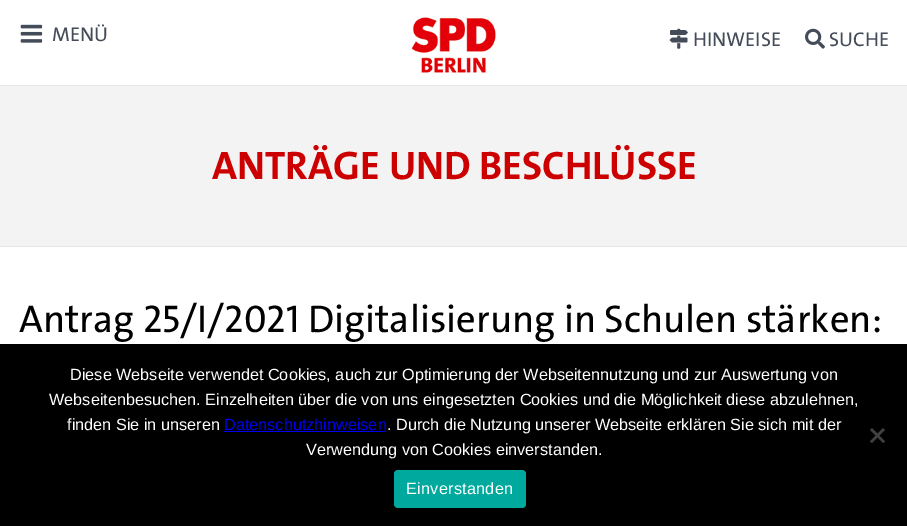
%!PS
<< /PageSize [907 526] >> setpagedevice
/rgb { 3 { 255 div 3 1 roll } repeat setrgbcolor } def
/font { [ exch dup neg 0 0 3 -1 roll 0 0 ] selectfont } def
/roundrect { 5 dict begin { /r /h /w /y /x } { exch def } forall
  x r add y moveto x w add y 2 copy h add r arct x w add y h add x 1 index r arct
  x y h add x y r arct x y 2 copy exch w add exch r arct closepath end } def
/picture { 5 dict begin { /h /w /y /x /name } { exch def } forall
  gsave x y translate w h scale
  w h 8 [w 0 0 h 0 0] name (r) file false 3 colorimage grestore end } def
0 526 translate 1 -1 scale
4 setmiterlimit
255 255 255 rgb
0 0 907 526 rectfill
243 243 243 rgb
0 86 907 160 rectfill
230 230 230 rgb
0 85 907 1 rectfill
(img/1.rgb) 20 24 23 19 picture
(img/2.rgb) 411 17 85 56 picture
(img/3.rgb) 669 28 19 21 picture
(img/4.rgb) 805 28 20 21 picture
[
  [0 246 907 1 229 229 229]
  [0 344 907 182 0 0 0]
  [224 431 162 1 0 0 238]
] { aload pop rgb rectfill } forall
64 64 64 rgb
883 428 moveto 885 430 lineto 872 443 lineto 870 441.5 lineto closepath fill
870 430 moveto 872 428 lineto 885 441.5 lineto 883 443 lineto closepath fill
0 169 157 rgb
394 470 132 38 4 roundrect fill
/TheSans-Medium 20 font
69 76 89 rgb
[
  [(MENÜ) 52 41]
  [(HINWEISE) 693 46]
  [(SUCHE) 829 46]
] { aload pop moveto show } forall
/TheSans-Bold 40 font
204 0 0 rgb
212 179 moveto (ANTRÄGE UND BESCHLÜSSE) show
/TheSans-Medium 38.75 font
0 0 0 rgb
19 332 moveto (Antrag 25/I/2021 Digitalisierung in Schulen stärken:) show
/LiberationSans-Regular 16.25 font
255 255 255 rgb
[
  [(Diese Webseite verwendet Cookies, auch zur Optimierung der Webseitennutzung und zur Auswertung von) 70 380]
  [(Webseitenbesuchen. Einzelheiten über die von uns eingesetzten Cookies und die Möglichkeit diese abzulehnen,) 49 405]
  [(finden Sie in unseren) 67 430]
] { aload pop moveto show } forall
0 0 238 rgb
224 430 moveto (Datenschutzhinweisen) show
255 255 255 rgb
387 430 moveto (. Durch die Nutzung unserer Webseite erklären Sie sich mit der) show
306 455 moveto (Verwendung von Cookies einverstanden.) show
406 494 moveto 0.25 0 (Einverstanden) ashow
showpage
